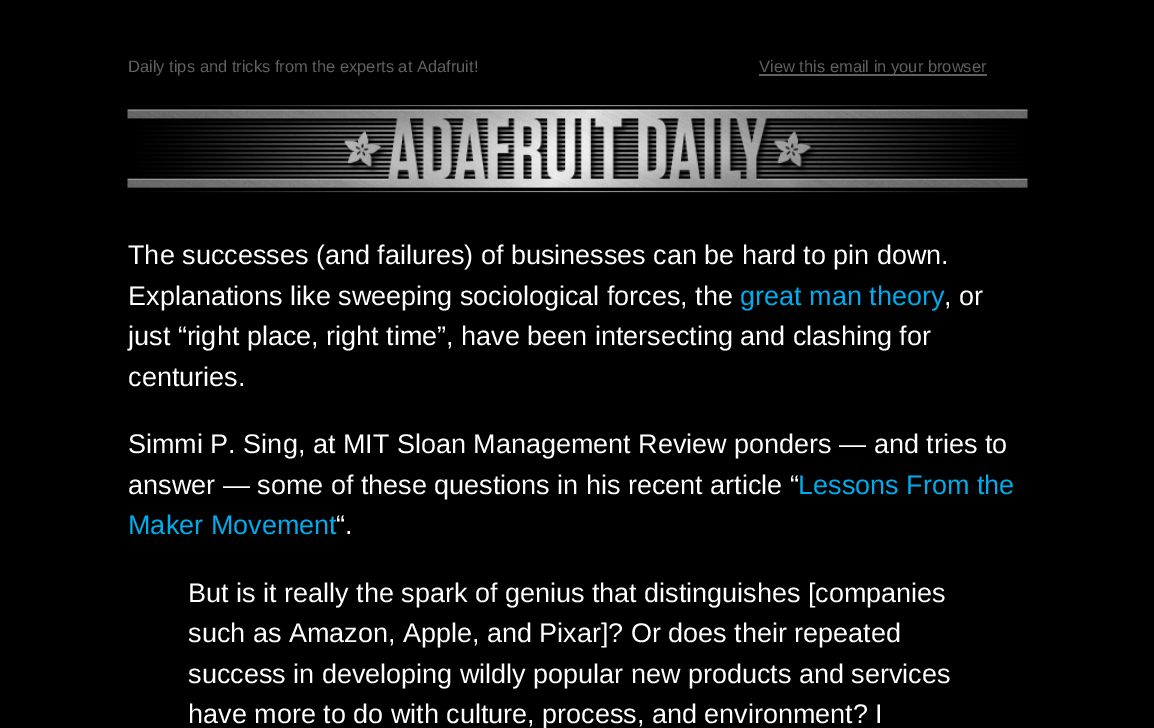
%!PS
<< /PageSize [1154 728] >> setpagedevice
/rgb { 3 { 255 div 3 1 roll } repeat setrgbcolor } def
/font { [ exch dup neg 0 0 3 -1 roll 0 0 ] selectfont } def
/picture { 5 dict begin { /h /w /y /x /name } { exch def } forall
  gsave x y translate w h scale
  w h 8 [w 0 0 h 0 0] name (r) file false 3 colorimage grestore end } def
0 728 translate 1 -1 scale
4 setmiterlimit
0 0 0 rgb
0 0 1154 728 rectfill
96 96 96 rgb
759 74 228 2 rectfill
(img/1.rgb) 127 105 901 88 picture
/LiberationSans-Regular 16.5 font
128 72 moveto (Daily tips and tricks from the experts at Adafruit!) show
759 72 moveto (View this email in your browser) show
/LiberationSans-Regular 27 font
255 255 255 rgb
128 264 moveto (The successes \(and failures\) of businesses can be hard to pin down.) show
128 305 moveto (Explanations like sweeping sociological forces, the) show
0 172 236 rgb
740 305 moveto (great man theory) show
255 255 255 rgb
[
  [(, or) 944 305]
  [(just “right place, right time”, have been intersecting and clashing for) 128 345]
  [(centuries.) 128 386]
  [(Simmi P. Sing, at MIT Sloan Management Review ponders — and tries to) 128 453]
  [(answer — some of these questions in his recent article “) 128 494]
] { aload pop moveto show } forall
0 172 236 rgb
798 494 moveto (Lessons From the) show
128 534 moveto (Maker Movement) show
255 255 255 rgb
[
  [(“.) 336 534]
  [(But is it really the spark of genius that distinguishes [companies) 188 602]
  [(such as Amazon, Apple, and Pixar]? Or does their repeated) 188 642]
  [(success in developing wildly popular new products and services) 188 683]
  [(have more to do with culture, process, and environment? I) 188 723]
] { aload pop moveto show } forall
showpage
